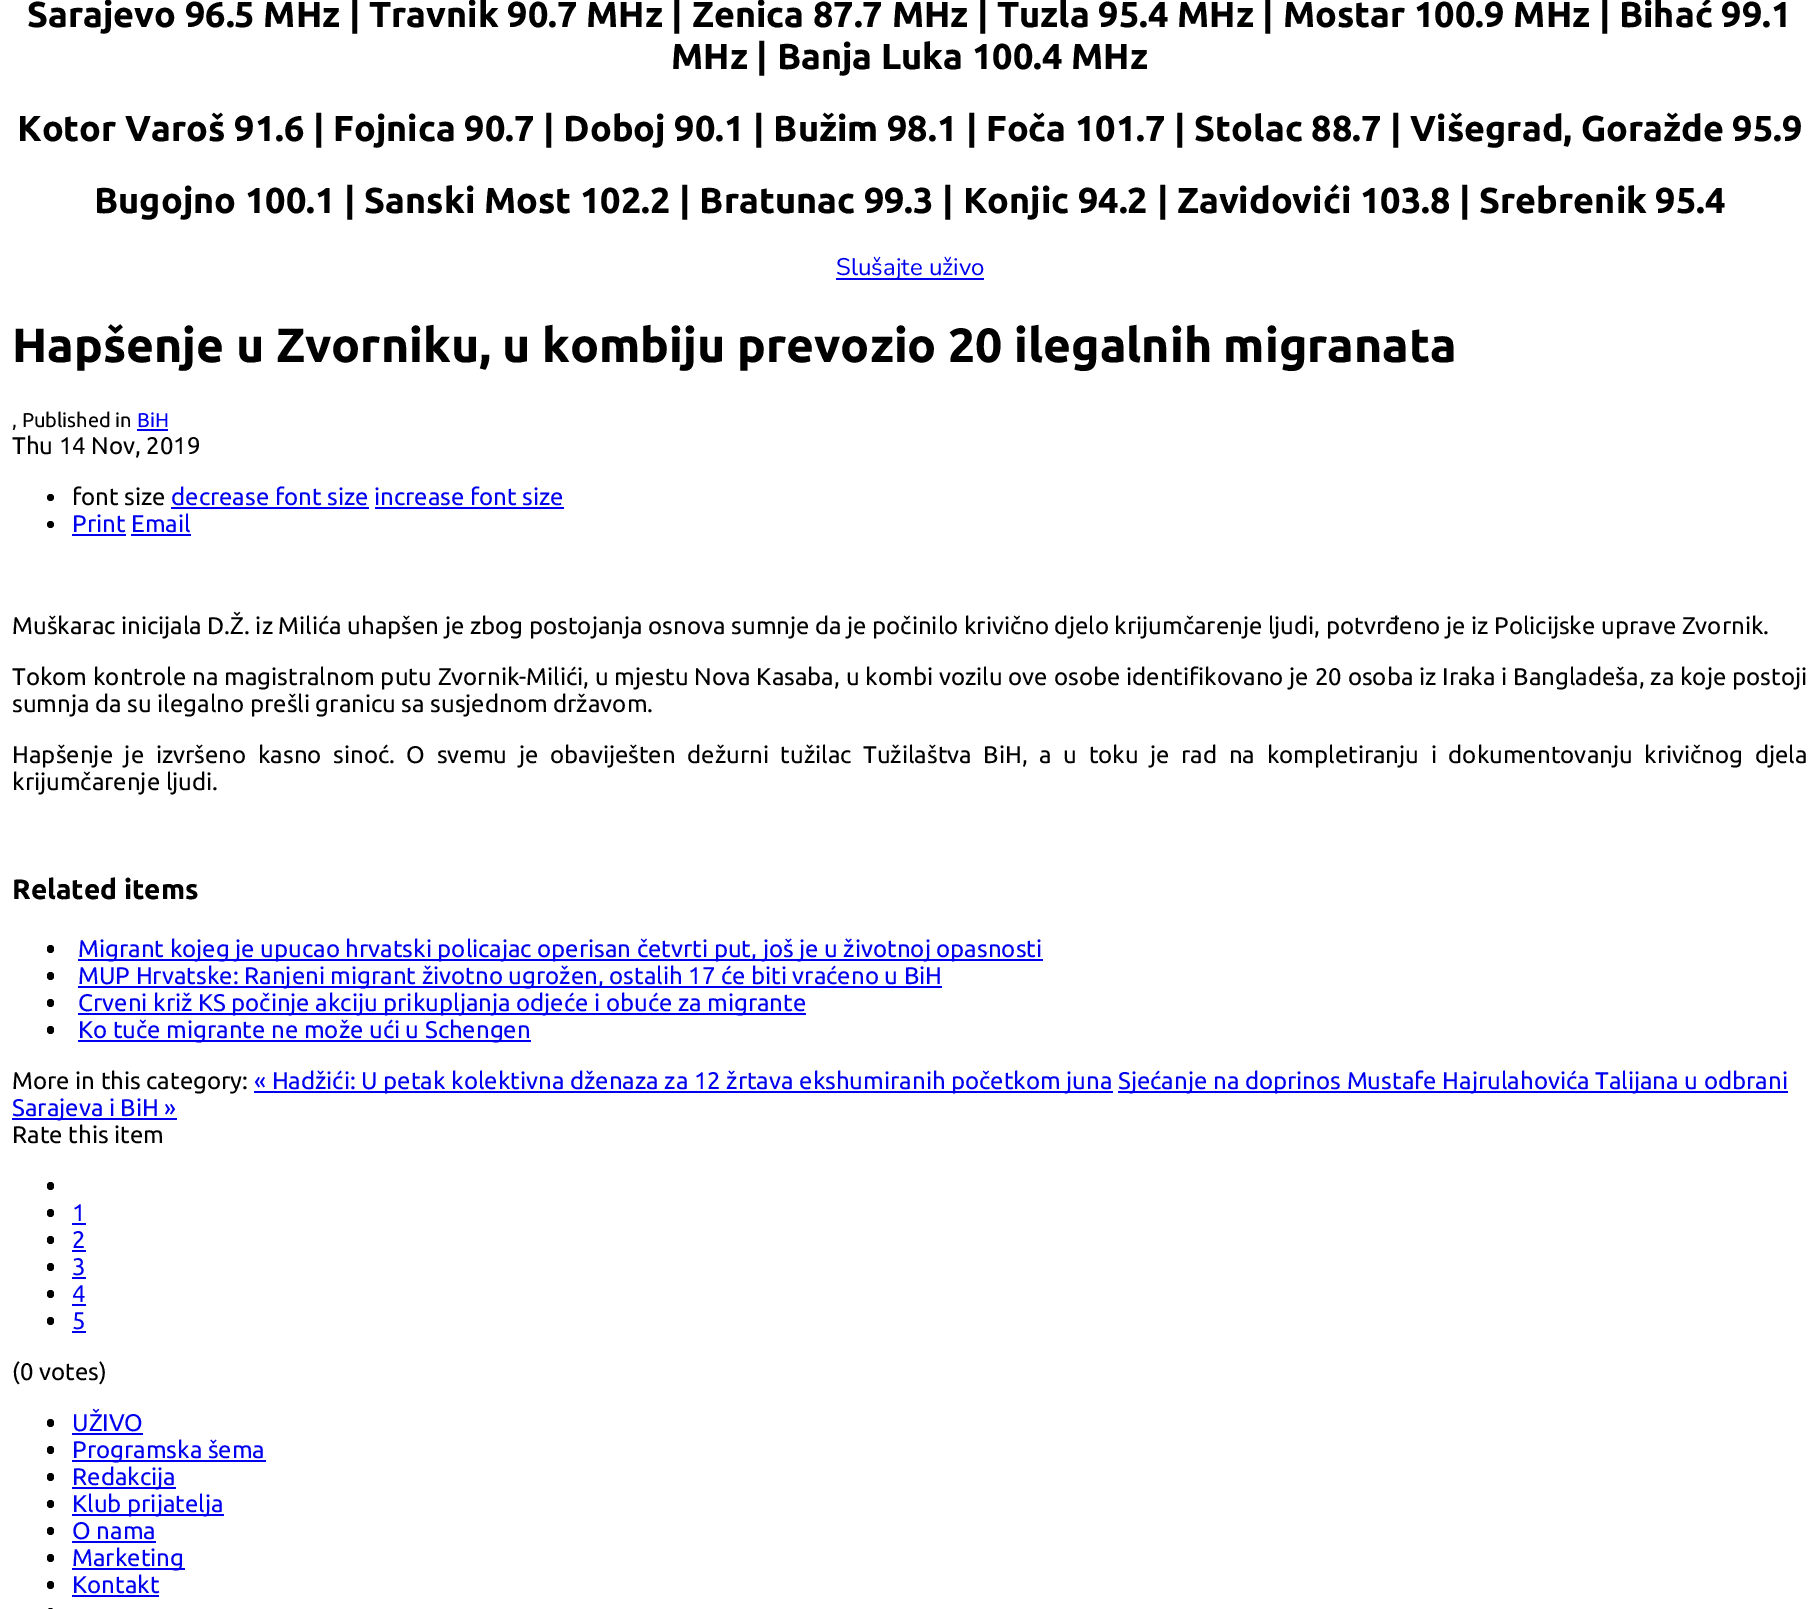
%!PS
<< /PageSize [1819 1609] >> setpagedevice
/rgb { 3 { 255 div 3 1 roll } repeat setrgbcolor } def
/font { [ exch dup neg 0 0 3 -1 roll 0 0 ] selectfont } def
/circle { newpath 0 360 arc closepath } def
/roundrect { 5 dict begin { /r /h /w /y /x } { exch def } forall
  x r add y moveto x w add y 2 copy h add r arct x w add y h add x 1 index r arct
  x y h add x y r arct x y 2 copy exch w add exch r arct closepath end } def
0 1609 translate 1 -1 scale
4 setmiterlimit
255 255 255 rgb
0 0 1819 1609 rectfill
0 0 238 rgb
836 278 148 2 rectfill
137 429 31 2 rectfill
0 0 0 rgb
50.5 497.5 3.5 circle fill
0 0 238 rgb
171 507 198 2 rectfill
375 507 189 2 rectfill
0 0 0 rgb
50.5 524.5 3.5 circle fill
0 0 238 rgb
72 534 54 2 rectfill
131 534 60 2 rectfill
0 0 0 rgb
47 945 7 8 3.5 roundrect fill
0 0 238 rgb
78 959 965 2 rectfill
0 0 0 rgb
47 972 7 8 3.5 roundrect fill
0 0 238 rgb
78 986 864 2 rectfill
0 0 0 rgb
47 999 7 8 3.5 roundrect fill
0 0 238 rgb
78 1013 728 2 rectfill
0 0 0 rgb
47 1026 7 8 3.5 roundrect fill
[
  [78 1040 453 2 0 0 238]
  [254 1091 859 2 0 0 238]
  [1118 1091 670 2 0 0 238]
  [12 1118 165 2 0 0 238]
] { aload pop rgb rectfill } forall
0 0 0 rgb
47 1182 7 8 3.5 roundrect fill
47 1209 7 8 3.5 roundrect fill
0 0 238 rgb
72 1223 14 2 rectfill
0 0 0 rgb
47 1236 7 8 3.5 roundrect fill
0 0 238 rgb
72 1250 14 2 rectfill
0 0 0 rgb
47 1263 7 8 3.5 roundrect fill
0 0 238 rgb
72 1277 14 2 rectfill
0 0 0 rgb
47 1290 7 8 3.5 roundrect fill
0 0 238 rgb
72 1304 14 2 rectfill
0 0 0 rgb
47 1317 7 8 3.5 roundrect fill
0 0 238 rgb
72 1331 14 2 rectfill
0 0 0 rgb
47 1419 7 8 3.5 roundrect fill
0 0 238 rgb
72 1433 71 2 rectfill
0 0 0 rgb
47 1446 7 8 3.5 roundrect fill
0 0 238 rgb
72 1460 194 2 rectfill
0 0 0 rgb
47 1473 7 8 3.5 roundrect fill
0 0 238 rgb
72 1487 104 2 rectfill
0 0 0 rgb
47 1500 7 8 3.5 roundrect fill
0 0 238 rgb
72 1514 152 2 rectfill
0 0 0 rgb
47 1527 7 8 3.5 roundrect fill
0 0 238 rgb
72 1541 84 2 rectfill
0 0 0 rgb
47 1554 7 8 3.5 roundrect fill
0 0 238 rgb
72 1568 113 2 rectfill
0 0 0 rgb
47 1581 7 8 3.5 roundrect fill
0 0 238 rgb
72 1595 87 2 rectfill
0 0 0 rgb
47 1608 7 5 3.5 roundrect fill
/Ubuntu-Bold 36 font
[
  [(Sarajevo 96.5 MHz | Travnik 90.7 MHz | Zenica 87.7 MHz | Tuzla 95.4 MHz | Mostar 100.9 MHz | Bihać 99.1) 27 27]
  [(MHz | Banja Luka 100.4 MHz) 671 69]
  [(Kotor Varoš 91.6 | Fojnica 90.7 | Doboj 90.1 | Bužim 98.1 | Foča 101.7 | Stolac 88.7 | Višegrad, Goražde 95.9) 17 141]
  [(Bugojno 100.1 | Sanski Most 102.2 | Bratunac 99.3 | Konjic 94.2 | Zavidovići 103.8 | Srebrenik 95.4) 94 213]
] { aload pop moveto show } forall
/Nunito-Regular 24 font
0 0 238 rgb
836 275 moveto (Slušajte uživo) show
/Ubuntu-Bold 48 font
0 0 0 rgb
12 362 moveto (Hapšenje u Zvorniku, u kombiju prevozio 20 ilegalnih migranata) show
/Ubuntu-Regular 20 font
12 427 moveto (, Published in) show
0 0 238 rgb
137 427 moveto (BiH) show
/Ubuntu-Regular 24 font
0 0 0 rgb
12 454 moveto (Thu 14 Nov, 2019) show
72 505 moveto (font size) show
0 0 238 rgb
171 505 moveto (decrease font size increase font size) show
72 532 moveto (Print Email) show
0 0 0 rgb
12 634 moveto (Muškarac inicijala D.Ž. iz Milića uhapšen je zbog postojanja osnova sumnje da je počinilo krivično djelo krijumčarenje ljudi, potvrđeno je iz Policijske uprave Zvornik.) show
12 685 moveto 0.25 0 32 (Tokom kontrole na magistralnom putu Zvornik-Milići, u mjestu Nova Kasaba, u kombi vozilu ove osobe identifikovano je 20 osoba iz Iraka i Bangladeša, za koje postoji) widthshow
12 712 moveto (sumnja da su ilegalno prešli granicu sa susjednom državom.) show
12 763 moveto 6 0 32 (Hapšenje je izvršeno kasno sinoć. O svemu je obaviješten dežurni tužilac Tužilaštva BiH, a u toku je rad na kompletiranju i dokumentovanju krivičnog djela) widthshow
12 790 moveto (krijumčarenje ljudi.) show
/Ubuntu-Bold 28 font
12 899 moveto (Related items) show
/Ubuntu-Regular 24 font
0 0 238 rgb
[
  [(Migrant kojeg je upucao hrvatski policajac operisan četvrti put, još je u životnoj opasnosti) 78 957]
  [(MUP Hrvatske: Ranjeni migrant životno ugrožen, ostalih 17 će biti vraćeno u BiH) 78 984]
  [(Crveni križ KS počinje akciju prikupljanja odjeće i obuće za migrante) 78 1011]
  [(Ko tuče migrante ne može ući u Schengen) 78 1038]
] { aload pop moveto show } forall
0 0 0 rgb
12 1089 moveto (More in this category:) show
0 0 238 rgb
[
  [(« Hadžići: U petak kolektivna dženaza za 12 žrtava ekshumiranih početkom juna) 254 1089]
  [(Sjećanje na doprinos Mustafe Hajrulahovića Talijana u odbrani) 1118 1089]
  [(Sarajeva i BiH ») 12 1116]
] { aload pop moveto show } forall
0 0 0 rgb
12 1143 moveto (Rate this item) show
0 0 238 rgb
[
  [(1) 72 1221]
  [(2) 72 1248]
  [(3) 72 1275]
  [(4) 72 1302]
  [(5) 72 1329]
] { aload pop moveto show } forall
0 0 0 rgb
12 1380 moveto (\(0 votes\)) show
0 0 238 rgb
[
  [(UŽIVO) 72 1431]
  [(Programska šema) 72 1458]
  [(Redakcija) 72 1485]
  [(Klub prijatelja) 72 1512]
  [(O nama) 72 1539]
  [(Marketing) 72 1566]
  [(Kontakt) 72 1593]
] { aload pop moveto show } forall
showpage
